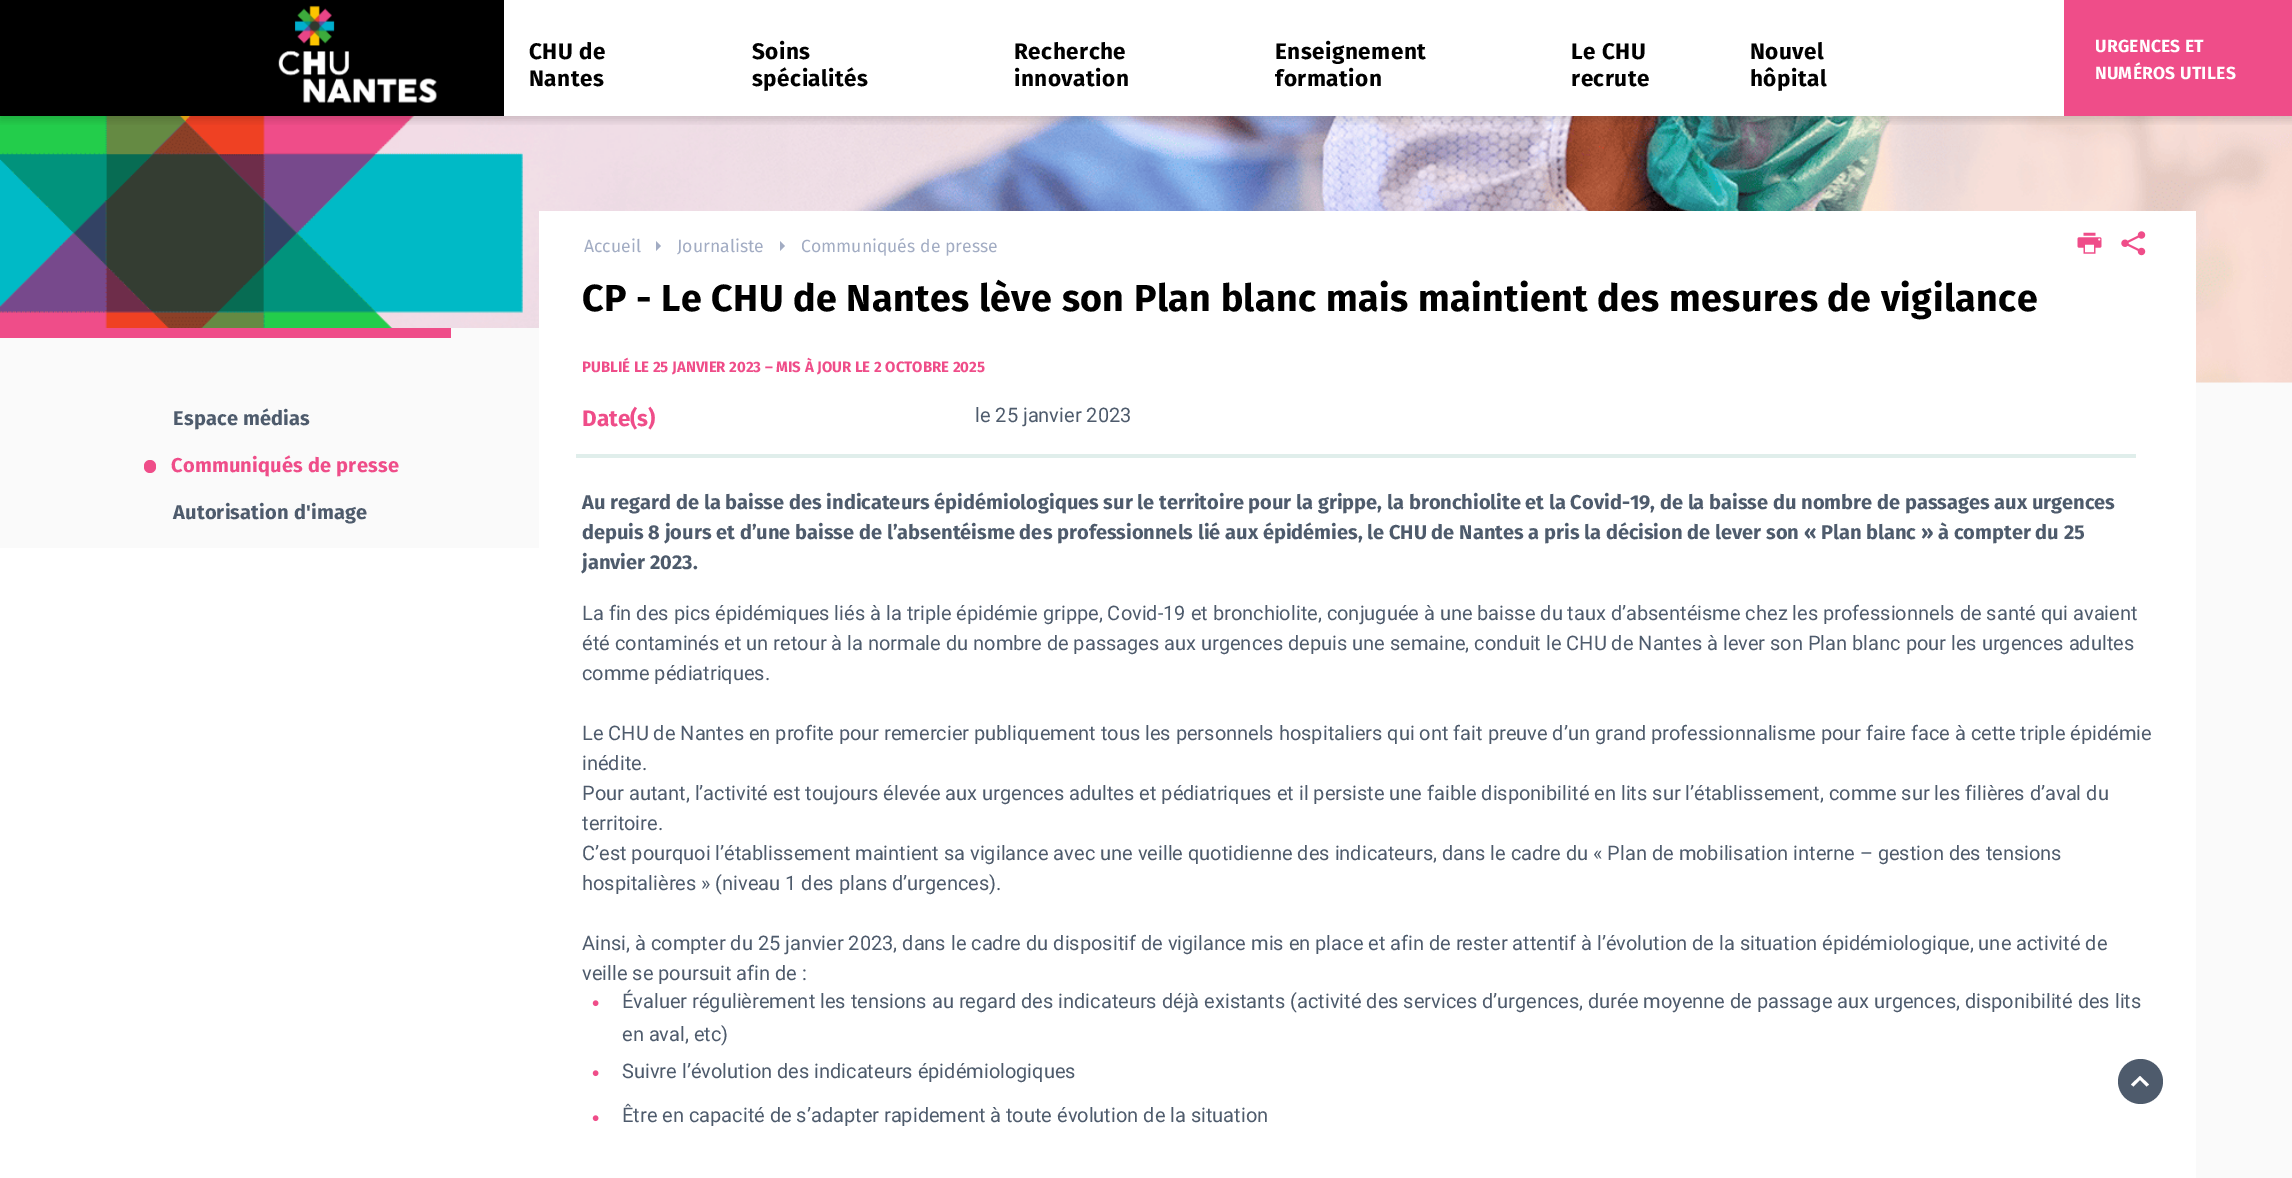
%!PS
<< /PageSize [2292 1178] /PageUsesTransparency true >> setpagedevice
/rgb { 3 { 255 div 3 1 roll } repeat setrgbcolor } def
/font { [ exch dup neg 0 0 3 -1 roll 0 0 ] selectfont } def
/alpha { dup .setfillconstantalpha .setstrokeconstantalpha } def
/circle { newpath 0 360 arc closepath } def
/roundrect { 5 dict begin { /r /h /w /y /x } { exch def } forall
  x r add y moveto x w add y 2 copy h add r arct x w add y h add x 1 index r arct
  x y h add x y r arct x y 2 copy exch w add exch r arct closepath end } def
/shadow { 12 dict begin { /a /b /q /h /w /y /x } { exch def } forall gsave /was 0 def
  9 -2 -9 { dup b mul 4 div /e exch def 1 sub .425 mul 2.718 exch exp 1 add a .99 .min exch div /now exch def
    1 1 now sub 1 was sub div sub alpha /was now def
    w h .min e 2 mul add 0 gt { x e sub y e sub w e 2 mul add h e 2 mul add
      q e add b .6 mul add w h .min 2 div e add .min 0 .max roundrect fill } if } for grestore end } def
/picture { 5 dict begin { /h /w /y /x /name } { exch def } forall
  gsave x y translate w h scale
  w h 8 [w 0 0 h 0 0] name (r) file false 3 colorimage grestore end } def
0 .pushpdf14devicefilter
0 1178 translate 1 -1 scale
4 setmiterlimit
250 250 250 rgb
0 0 2292 1178 rectfill
0 0 0 rgb
0 0 504 116 rectfill
255 255 255 rgb
504 0 1560 116 rectfill
(img/2.rgb) 0 116 2292 267 picture
gsave
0 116 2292 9 rectclip
0 0 0 rgb
0 4 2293 116 0 4.5 0.15 shadow
grestore
(img/1.rgb) 278 5 159 98 picture
[
  [2064 0 228 116 239 77 137]
  [0 328 539 55 250 250 250]
  [0 328 451 10 239 77 137]
] { aload pop rgb rectfill } forall
144 460 12 13 6 roundrect fill
255 255 255 rgb
539 211 1657 967 rectfill
162 172 195 rgb
656 251 moveto 656 241 lineto 661 246 lineto closepath fill
780 251 moveto 780 241 lineto 785 246 lineto closepath fill
(img/3.rgb) 2077 232 25 22 picture
(img/4.rgb) 2121 231 25 25 picture
224 238 235 rgb
576 454 1560 4 rectfill
(img/5.rgb) 592 1000 7 7 picture
(img/5.rgb) 592 1070 7 7 picture
(img/5.rgb) 592 1115 7 7 picture
255 255 255 rgb
0 548 539 630 rectfill
78 91 108 rgb
2140.5 1081.5 22.5 circle fill
255 255 255 rgb
2140 1076 moveto 2149 1084.5 lineto 2146.5 1086.5 lineto 2140 1080 lineto 2133.5 1086.5 lineto 2131 1084.5 lineto closepath fill
/FiraSans-Bold 22.5 font
0 0 0 rgb
529 59 moveto 0.5 0 (CHU de) ashow
529 86 moveto 0.5 0 (Nantes) ashow
752 59 moveto 0.5 0 (Soins) ashow
752 86 moveto 0.5 0 (spécialités) ashow
1014 59 moveto 0.5 0 (Recherche) ashow
1014 86 moveto 0.5 0 (innovation) ashow
1275 59 moveto 0.5 0 (Enseignement) ashow
1275 86 moveto 0.5 0 (formation) ashow
1571 59 moveto 0.5 0 (Le CHU) ashow
1571 86 moveto 0.5 0 (recrute) ashow
1750 59 moveto 0.5 0 (Nouvel) ashow
1750 86 moveto 0.5 0 (hôpital) ashow
/FiraSans-Bold 17.5 font
255 255 255 rgb
2095 52 moveto 0.25 0 (URGENCES ET) ashow
2095 79 moveto 0.25 0 (NUMÉROS UTILES) ashow
/FiraSans-Bold 20 font
78 91 108 rgb
173 425 moveto 0.2 0 (Espace médias) ashow
239 77 137 rgb
171 472 moveto 0.2 0 (Communiqués de presse) ashow
78 91 108 rgb
173 519 moveto 0.2 0 (Autorisation d'image) ashow
/FiraSans-Regular 17.6 font
162 172 195 rgb
[
  [(Accueil) 584 252]
  [(Journaliste) 677 252]
  [(Communiqués de presse) 801 252]
] { aload pop moveto show } forall
/FiraSans-Bold 37.6 font
0 0 0 rgb
582 311 moveto 0.38 0 (CP - Le CHU de Nantes lève son Plan blanc mais maintient des mesures de vigilance) ashow
/FiraSans-Bold 15 font
239 77 137 rgb
582 372 moveto (PUBLIÉ LE 25 JANVIER 2023 – MIS À JOUR LE 2 OCTOBRE 2025) show
/FiraSans-Bold 22.5 font
582 426 moveto (Date\(s\)) show
/Roboto-Regular 20 font
78 91 108 rgb
975 422 moveto (le 25 janvier 2023) show
/FiraSans-Bold 20 font
[
  [(Au regard de la baisse des indicateurs épidémiologiques sur le territoire pour la grippe, la bronchiolite et la Covid-19, de la baisse du nombre de passages aux urgences) 582 509]
  [(depuis 8 jours et d’une baisse de l’absentéisme des professionnels lié aux épidémies, le CHU de Nantes a pris la décision de lever son « Plan blanc » à compter du 25) 582 539]
  [(janvier 2023.) 582 569]
] { aload pop moveto show } forall
/Roboto-Regular 20 font
[
  [(La fin des pics épidémiques liés à la triple épidémie grippe, Covid-19 et bronchiolite, conjuguée à une baisse du taux d’absentéisme chez les professionnels de santé qui avaient) 582 620]
  [(été contaminés et un retour à la normale du nombre de passages aux urgences depuis une semaine, conduit le CHU de Nantes à lever son Plan blanc pour les urgences adultes) 582 650]
  [(comme pédiatriques.) 582 680]
  [(Le CHU de Nantes en profite pour remercier publiquement tous les personnels hospitaliers qui ont fait preuve d’un grand professionnalisme pour faire face à cette triple épidémie) 582 740]
  [(inédite.) 582 770]
  [(Pour autant, l’activité est toujours élevée aux urgences adultes et pédiatriques et il persiste une faible disponibilité en lits sur l’établissement, comme sur les filières d’aval du) 582 800]
  [(territoire.) 582 830]
  [(C’est pourquoi l’établissement maintient sa vigilance avec une veille quotidienne des indicateurs, dans le cadre du « Plan de mobilisation interne – gestion des tensions) 582 860]
  [(hospitalières » \(niveau 1 des plans d’urgences\).) 582 890]
  [(Ainsi, à compter du 25 janvier 2023, dans le cadre du dispositif de vigilance mis en place et afin de rester attentif à l’évolution de la situation épidémiologique, une activité de) 582 950]
  [(veille se poursuit afin de :) 582 980]
  [(Évaluer régulièrement les tensions au regard des indicateurs déjà existants \(activité des services d’urgences, durée moyenne de passage aux urgences, disponibilité des lits) 622 1008]
  [(en aval, etc\)) 622 1041]
  [(Suivre l’évolution des indicateurs épidémiologiques) 622 1078]
  [(Être en capacité de s’adapter rapidement à toute évolution de la situation) 622 1122]
] { aload pop moveto show } forall
.poppdf14devicefilter showpage
